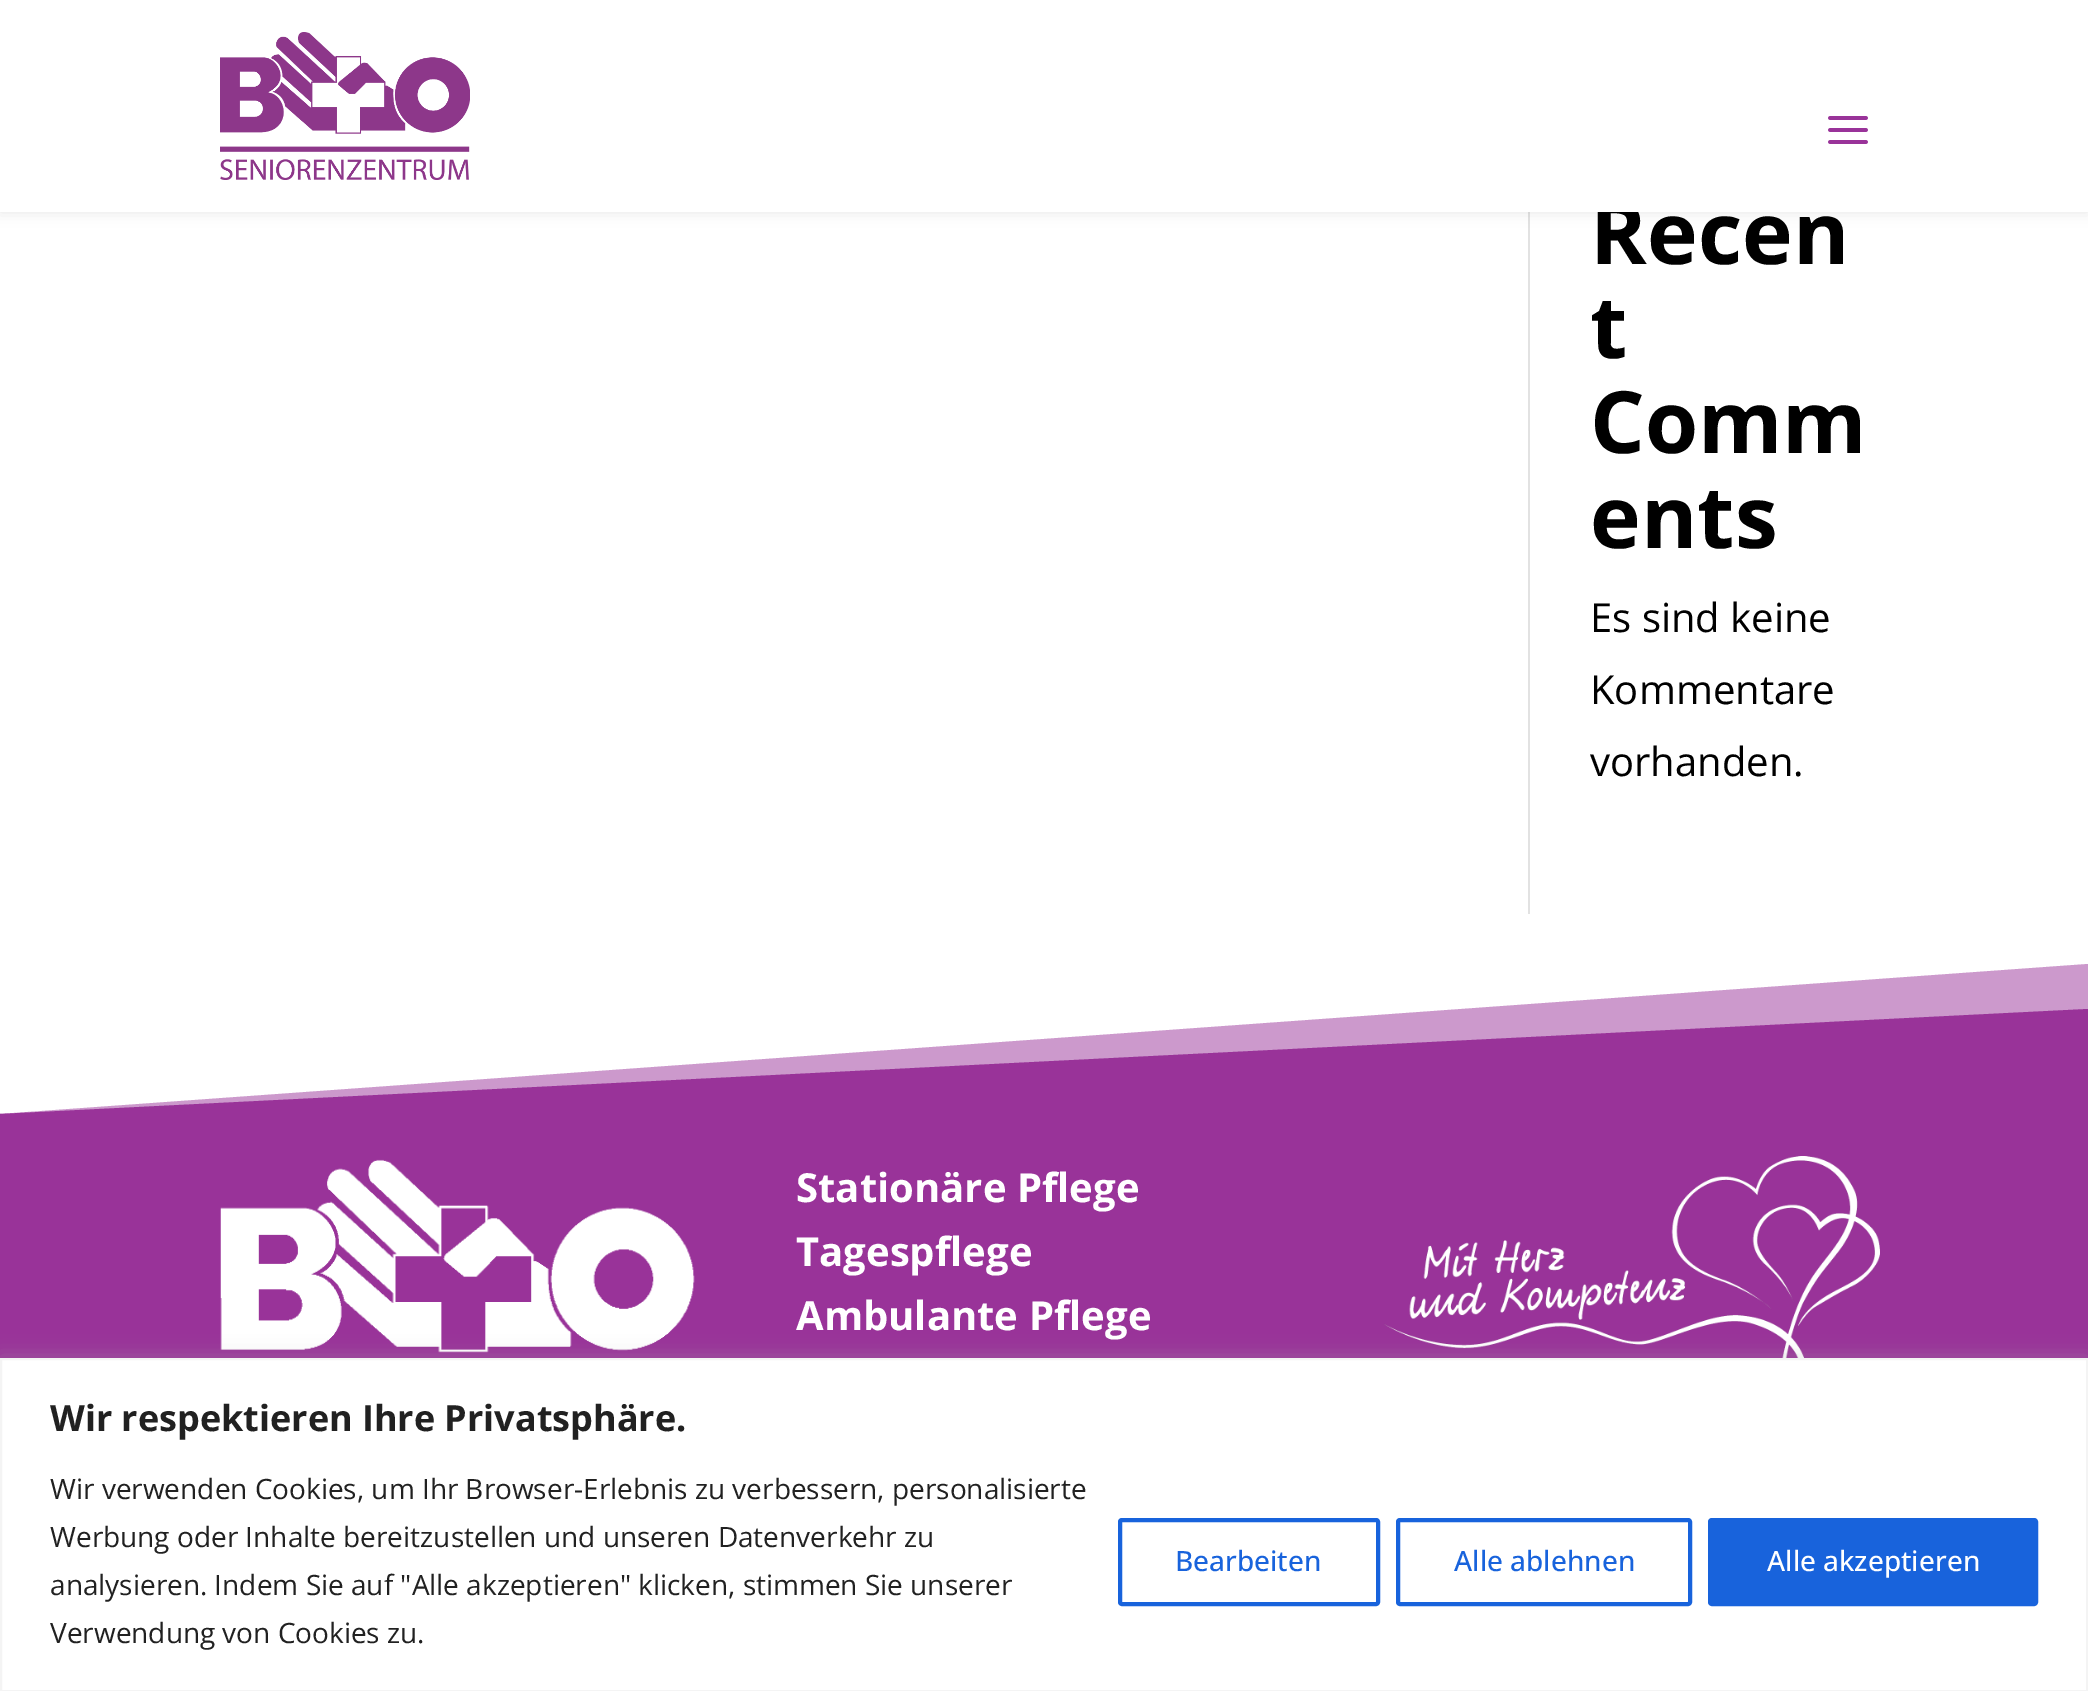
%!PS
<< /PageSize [2088 1691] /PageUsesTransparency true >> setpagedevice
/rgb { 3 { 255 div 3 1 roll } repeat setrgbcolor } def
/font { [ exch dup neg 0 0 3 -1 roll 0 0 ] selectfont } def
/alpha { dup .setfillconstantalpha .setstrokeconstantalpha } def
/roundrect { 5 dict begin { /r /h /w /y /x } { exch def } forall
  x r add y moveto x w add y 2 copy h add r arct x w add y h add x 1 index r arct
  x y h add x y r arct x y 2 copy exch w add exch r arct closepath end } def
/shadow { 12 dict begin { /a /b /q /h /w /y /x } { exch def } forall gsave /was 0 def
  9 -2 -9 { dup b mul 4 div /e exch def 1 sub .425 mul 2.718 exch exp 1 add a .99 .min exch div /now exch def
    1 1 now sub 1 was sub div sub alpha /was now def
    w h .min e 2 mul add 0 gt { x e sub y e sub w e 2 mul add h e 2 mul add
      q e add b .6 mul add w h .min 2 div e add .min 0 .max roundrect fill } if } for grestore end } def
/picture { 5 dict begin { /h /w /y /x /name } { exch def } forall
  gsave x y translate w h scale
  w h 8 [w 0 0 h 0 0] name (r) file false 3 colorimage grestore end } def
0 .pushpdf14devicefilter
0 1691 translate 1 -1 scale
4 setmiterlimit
255 255 255 rgb
0 0 2088 1691 rectfill
226 226 226 rgb
1528 212 2 702 rectfill
0 0 0 rgb
0 0 2088 212 0 7 0.1 shadow
204 153 204 rgb
2088 964 moveto 2088 1114 lineto 0 1114 lineto closepath fill
153 51 153 rgb
2088 1009 moveto 2088 1114 lineto 0 1114 lineto closepath fill
0 1114 2088 244 rectfill
(img/3.rgb) 220 1159 475 194 picture
(img/4.rgb) 1384 1156 496 202 picture
172 171 171 rgb
0 1356 2088 334 0 10 0.3 shadow
255 255 255 rgb
1 1359 moveto 2087 1359 lineto 2087 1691 lineto 1 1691 lineto closepath gsave fill grestore
244 244 244 rgb
2 setlinewidth
stroke
24 99 220 rgb
4 setlinewidth
1120 1520 258 84 2 roundrect stroke
1398 1520 292 84 2 roundrect stroke
1710 1520 326 84 2 roundrect gsave fill grestore
stroke
/OpenSans-Bold 86 font
0 0 0 rgb
1590 264 moveto (Recen) show
255 255 255 rgb
0 0 2088 212 rectfill
(img/2.rgb) 1828 116 40 28 picture
(img/1.rgb) 220 32 250 148 picture
0 0 0 rgb
[
  [(t) 1590 358]
  [(Comm) 1590 453]
  [(ents) 1590 548]
] { aload pop moveto show } forall
/OpenSans-Regular 40 font
[
  [(Es sind keine) 1590 632]
  [(Kommentare) 1590 704]
  [(vorhanden.) 1590 776]
] { aload pop moveto show } forall
/OpenSans-Bold 40 font
255 255 255 rgb
[
  [(Stationäre Pflege) 796 1202]
  [(Tagespflege) 796 1266]
  [(Ambulante Pflege) 796 1330]
] { aload pop moveto show } forall
/OpenSans-Bold 36 font
33 33 33 rgb
50 1431 moveto (Wir respektieren Ihre Privatsphäre.) show
/OpenSans-Regular 28 font
[
  [(Wir verwenden Cookies, um Ihr Browser-Erlebnis zu verbessern, personalisierte) 50 1499]
  [(Werbung oder Inhalte bereitzustellen und unseren Datenverkehr zu) 50 1547]
  [(analysieren. Indem Sie auf "Alle akzeptieren" klicken, stimmen Sie unserer) 50 1595]
  [(Verwendung von Cookies zu.) 50 1643]
] { aload pop moveto show } forall
/OpenSans-Medium 28 font
24 99 220 rgb
1175 1571 moveto (Bearbeiten) show
1454 1571 moveto (Alle ablehnen) show
255 255 255 rgb
1767 1571 moveto (Alle akzeptieren) show
.poppdf14devicefilter showpage
